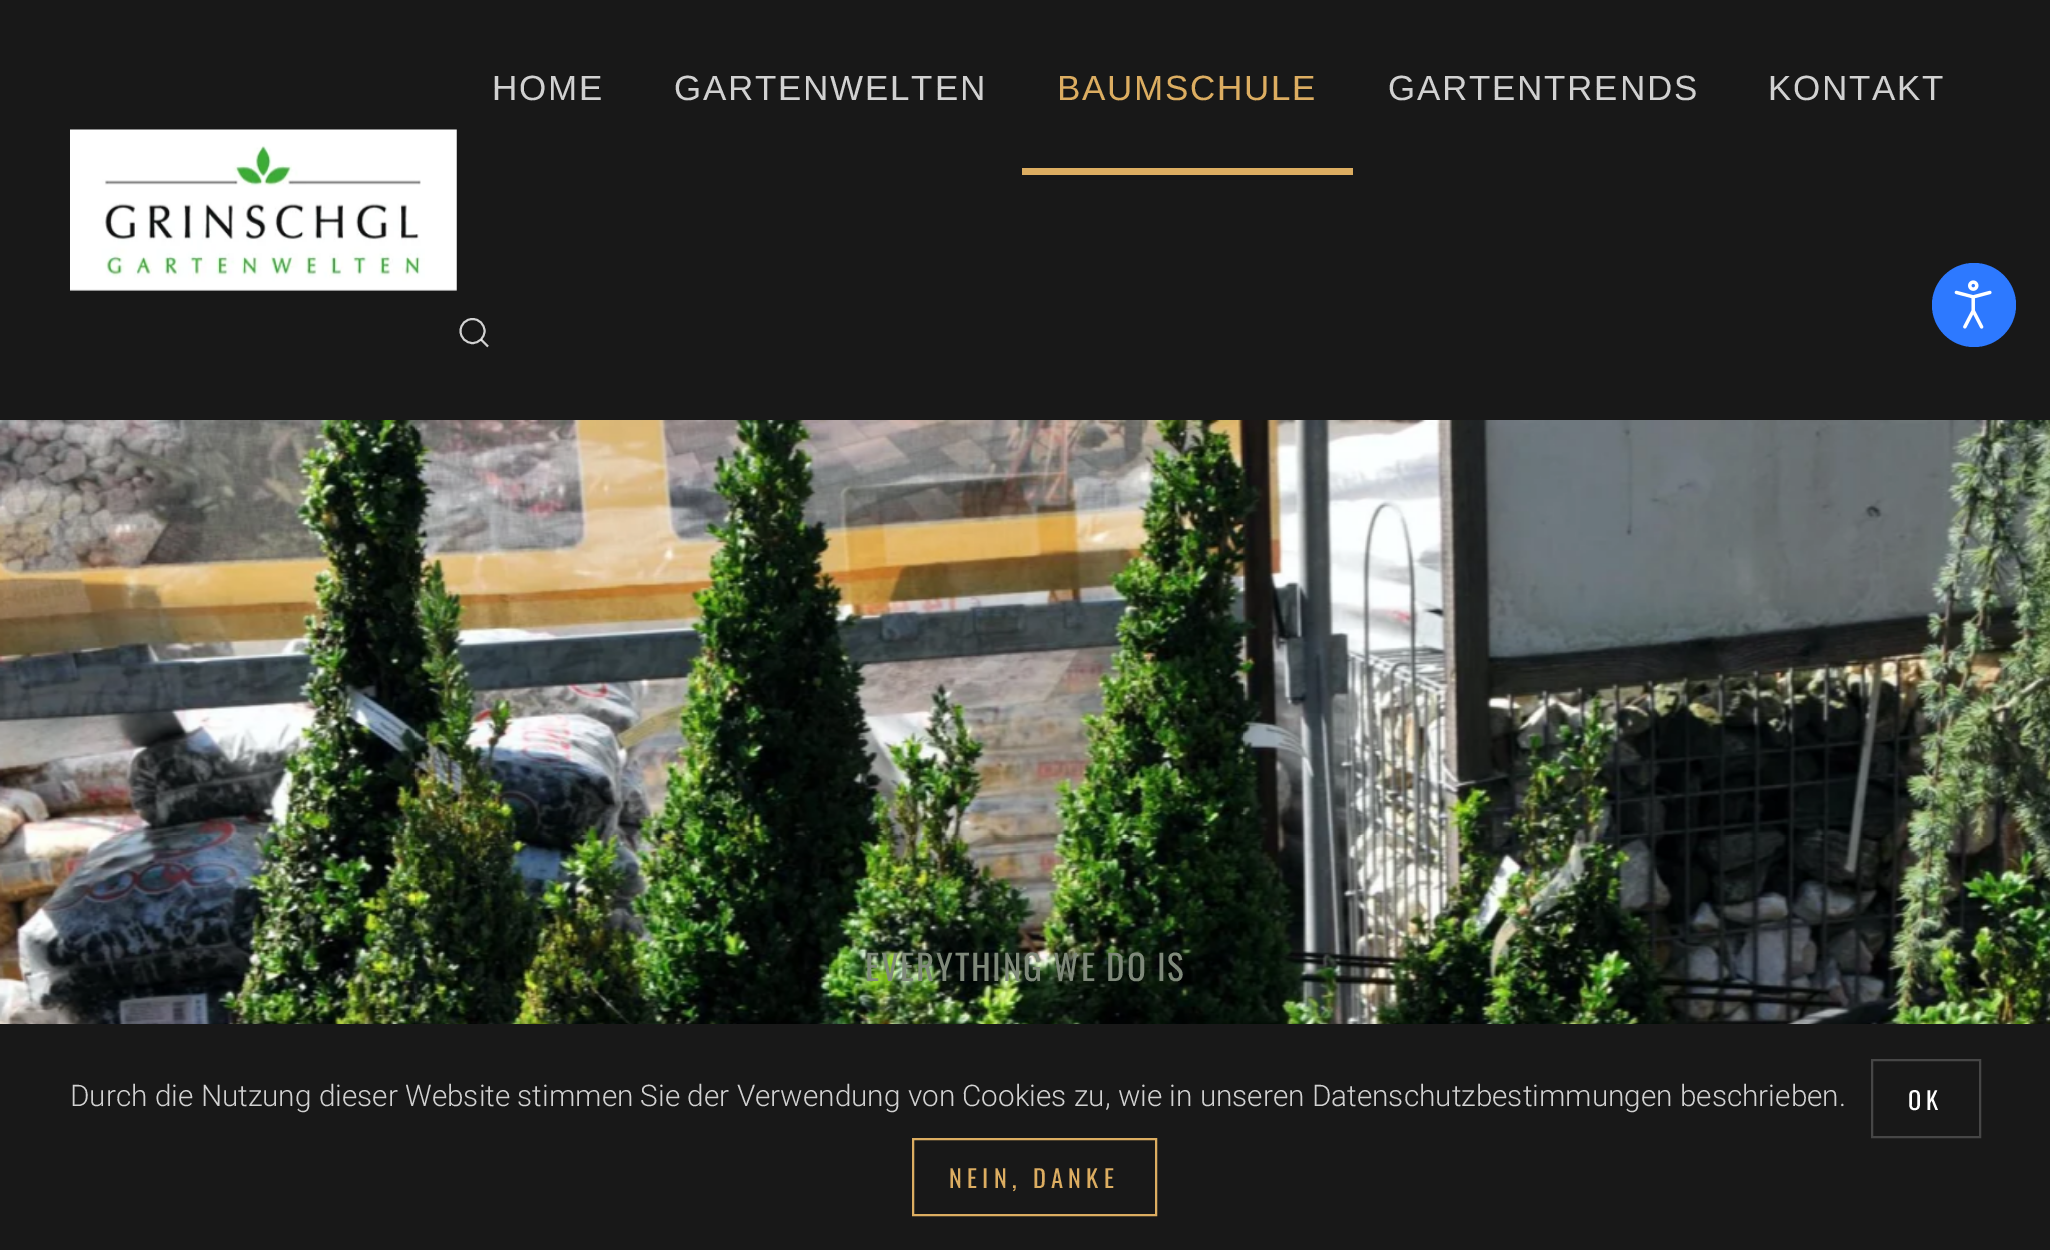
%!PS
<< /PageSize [2050 1250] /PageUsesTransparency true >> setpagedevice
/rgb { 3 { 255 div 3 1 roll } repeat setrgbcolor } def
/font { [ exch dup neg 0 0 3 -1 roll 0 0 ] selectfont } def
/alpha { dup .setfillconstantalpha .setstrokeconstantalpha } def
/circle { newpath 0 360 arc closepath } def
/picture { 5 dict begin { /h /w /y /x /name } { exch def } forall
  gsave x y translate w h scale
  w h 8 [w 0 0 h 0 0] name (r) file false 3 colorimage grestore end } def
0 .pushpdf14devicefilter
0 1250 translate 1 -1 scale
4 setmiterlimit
255 255 255 rgb
0 0 2050 1250 rectfill
24 24 24 rgb
0 0 2050 420 rectfill
220 173 97 rgb
1022 168 331 7 rectfill
209 209 209 rgb
1.9 setlinewidth
472.5 331 12 circle stroke
0.8 alpha
255 255 255 rgb
481 339.5 moveto 488 346.5 lineto closepath stroke
1 alpha
(img/1.rgb) 70 129 387 162 picture
(img/2.rgb) 2049 420 1 604 picture
(img/3.rgb) 0 420 2050 604 picture
45 121 255 rgb
1974 305 42 circle fill
(img/4.rgb) 1954 280 38 49 picture
24 24 24 rgb
0 1024 2050 226 rectfill
70 70 70 rgb
2 setlinewidth
1872 1060 108 77 rectstroke
220 173 97 rgb
913 1139 243 76 rectstroke
/LiberationSans-Regular 35 font
209 209 209 rgb
492 100 moveto 1.75 0 (HOME) ashow
674 100 moveto 1.75 0 (GARTENWELTEN) ashow
220 173 97 rgb
1057 100 moveto 1.75 0 (BAUMSCHULE) ashow
209 209 209 rgb
1388 100 moveto 1.75 0 (GARTENTRENDS) ashow
1768 100 moveto 1.75 0 (KONTAKT) ashow
/Oswald-Regular 35 font
127 137 122 rgb
865 981 moveto 1.75 0 (EVERYTHING WE DO IS) ashow
/Roboto-Light 29.75 font
209 209 209 rgb
70 1106 moveto (Durch die Nutzung dieser Website stimmen Sie der Verwendung von Cookies zu, wie in unseren Datenschutzbestimmungen beschrieben.) show
/Oswald-Regular 24.5 font
255 255 255 rgb
1908 1110 moveto 5.25 0 (OK) ashow
220 173 97 rgb
949 1188 moveto 5.25 0 (NEIN, DANKE) ashow
.poppdf14devicefilter showpage
